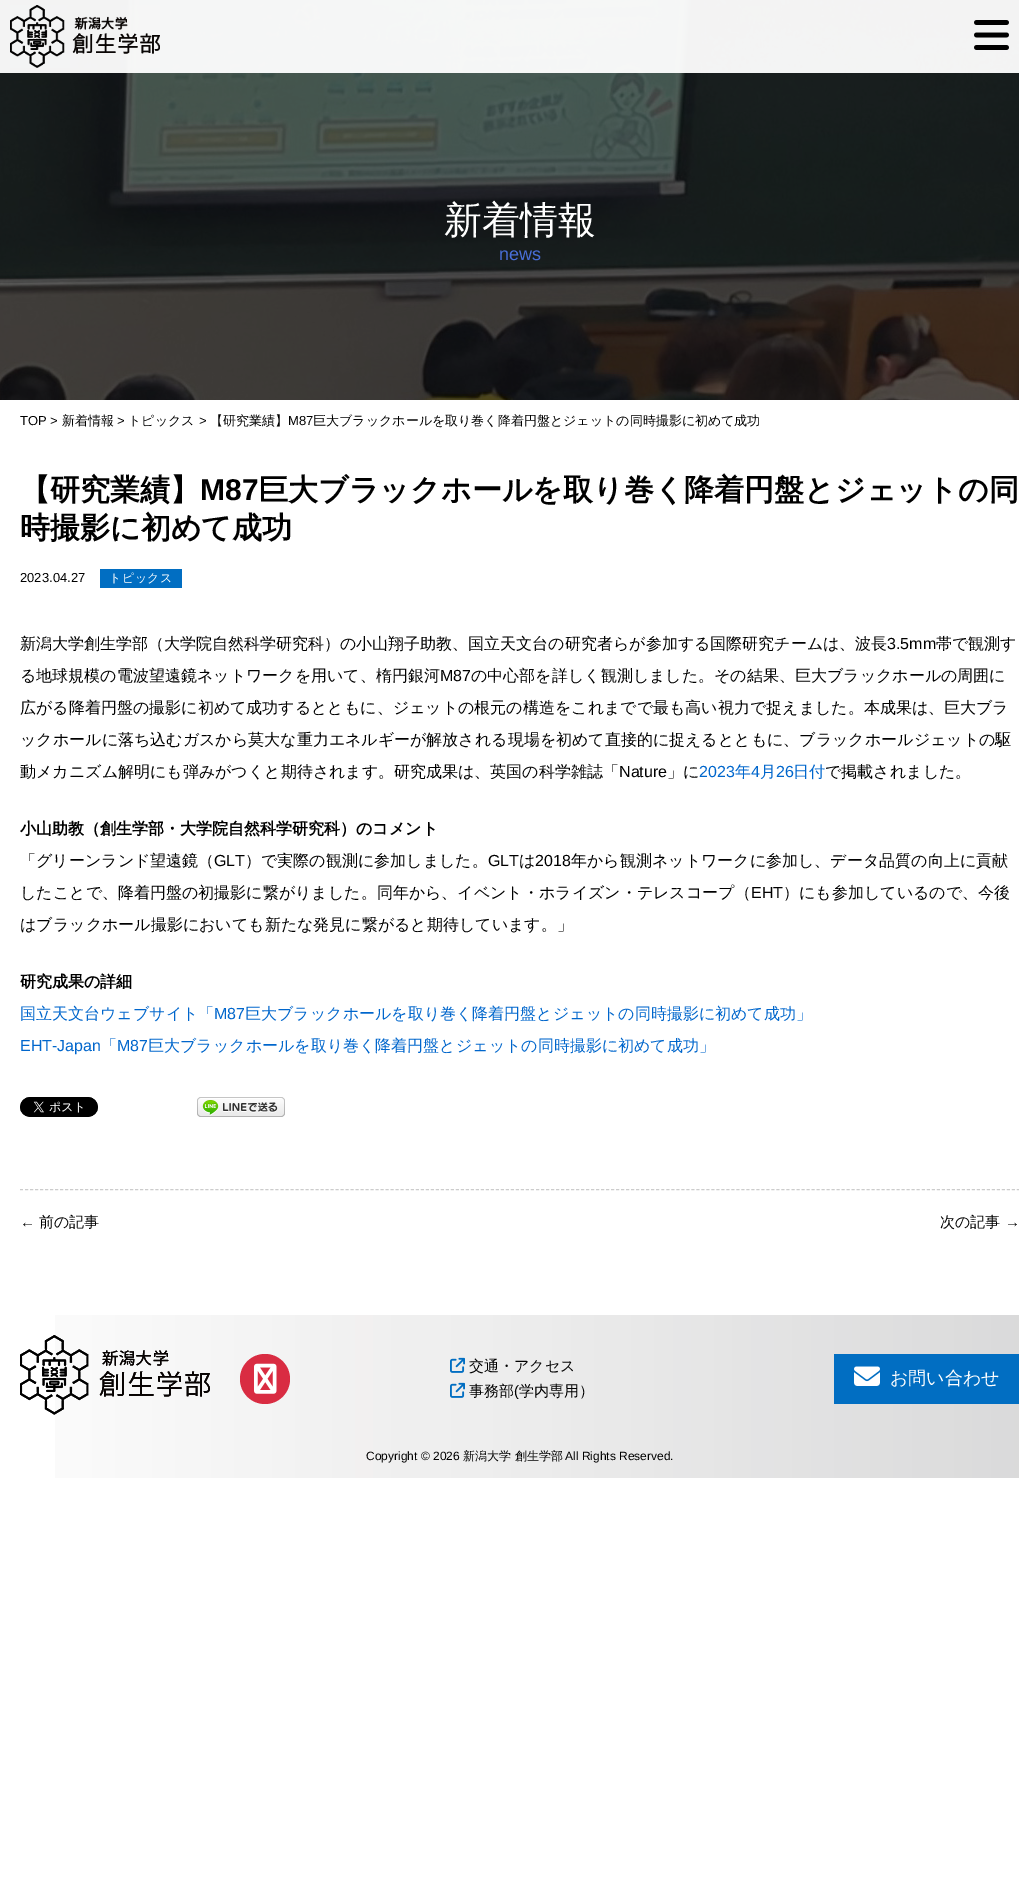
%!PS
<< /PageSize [1019 1895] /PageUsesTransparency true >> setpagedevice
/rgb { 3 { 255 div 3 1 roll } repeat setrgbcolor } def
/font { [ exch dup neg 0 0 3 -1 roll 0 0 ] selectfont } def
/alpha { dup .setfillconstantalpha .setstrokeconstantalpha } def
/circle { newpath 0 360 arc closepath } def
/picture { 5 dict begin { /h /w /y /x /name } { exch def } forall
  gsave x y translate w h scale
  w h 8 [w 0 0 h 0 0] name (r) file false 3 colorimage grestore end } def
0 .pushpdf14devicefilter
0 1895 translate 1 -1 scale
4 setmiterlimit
255 255 255 rgb
0 0 1019 1895 rectfill
(img/4.rgb) 0 0 1019 400 picture
0.95 alpha
0 0 1019 73 rectfill
1 alpha
(img/1.rgb) 10 5 150 63 picture
(img/2.rgb) 10 5 150 63 picture
(img/3.rgb) 974 20 35 30 picture
1 110 194 rgb
100 569 82 19 rectfill
(img/5.rgb) 20 1097 78 20 picture
(img/6.rgb) 20 1097 78 20 picture
(img/7.rgb) 197 1097 88 20 picture
(img/8.rgb) 197 1097 88 20 picture
204 204 204 rgb
[3 2.01] 0 setdash
20 1189.5 moveto 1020 1189.5 lineto stroke
(img/9.rgb) 55 1315 964 163 picture
(img/10.rgb) 20 1335 190 80 picture
(img/11.rgb) 20 1335 190 80 picture
217 44 66 rgb
265 1379 25 circle fill
(img/12.rgb) 254 1363 23 31 picture
(img/13.rgb) 450 1357 15 16 picture
(img/13.rgb) 450 1382 15 16 picture
1 110 194 rgb
834 1354 185 50 rectfill
(img/14.rgb) 854 1366 26 20 picture
/WenQuanYiZenHei-Medium 38 font
255 255 255 rgb
444 233 moveto (新着情報) show
/LiberationSans-Regular 18 font
72 110 215 rgb
499 260 moveto (news) show
/LiberationSans-Regular 13 font
0 0 0 rgb
20 425 moveto (TOP >) show
/WenQuanYiZenHei-Medium 13 font
62 425 moveto (新着情報) show
/LiberationSans-Regular 13 font
117 425 moveto (>) show
/WenQuanYiZenHei-Medium 13 font
128 425 moveto (トピックス) show
/LiberationSans-Regular 13 font
199 425 moveto (>) show
/WenQuanYiZenHei-Medium 13 font
210 425 moveto (【研究業績】) show
/LiberationSans-Regular 13 font
288 425 moveto (M87) show
/WenQuanYiZenHei-Medium 13 font
313 425 moveto (巨大ブラックホールを取り巻く降着円盤とジェットの同時撮影に初めて成功) show
/WenQuanYiZenHei-Bold 30 font
20 500 moveto (【研究業績】) show
/LiberationSans-Bold 30 font
200 500 moveto (M87) show
/WenQuanYiZenHei-Bold 30 font
258 500 moveto (巨大ブラックホールを取り巻く降着円盤とジェットの同) show
20 538 moveto (時撮影に初めて成功) show
/LiberationSans-Regular 13 font
20 582 moveto (2023.04.27) show
/WenQuanYiZenHei-Medium 12 font
255 255 255 rgb
109 582 moveto 0.5 0 (トピックス) ashow
/WenQuanYiZenHei-Medium 16 font
0 0 0 rgb
20 649 moveto (新潟大学創生学部（大学院自然科学研究科）の小山翔子助教、国立天文台の研究者らが参加する国際研究チームは、波長) show
/LiberationSans-Regular 16 font
887 649 moveto (3.5mm) show
/WenQuanYiZenHei-Medium 16 font
936 649 moveto (帯で観測す) show
20 681 moveto (る地球規模の電波望遠鏡ネットワークを用いて、楕円銀河) show
/LiberationSans-Regular 16 font
440 681 moveto (M87) show
/WenQuanYiZenHei-Medium 16 font
[
  [(の中心部を詳しく観測しました。その結果、巨大ブラックホールの周囲に) 471 681]
  [(広がる降着円盤の撮影に初めて成功するとともに、ジェットの根元の構造をこれまでで最も高い視力で捉えました。本成果は、巨大ブラ) 20 713]
  [(ックホールに落ち込むガスから莫大な重力エネルギーが解放される現場を初めて直接的に捉えるとともに、ブラックホールジェットの駆) 20 745]
  [(動メカニズム解明にも弾みがつくと期待されます。研究成果は、英国の科学雑誌「) 20 777]
] { aload pop moveto show } forall
/LiberationSans-Regular 16 font
619 777 moveto (Nature) show
/WenQuanYiZenHei-Medium 16 font
667 777 moveto (」に) show
/LiberationSans-Regular 16 font
0 102 204 rgb
699 777 moveto (2023) show
/WenQuanYiZenHei-Medium 16 font
735 777 moveto (年) show
/LiberationSans-Regular 16 font
751 777 moveto (4) show
/WenQuanYiZenHei-Medium 16 font
760 777 moveto (月) show
/LiberationSans-Regular 16 font
776 777 moveto (26) show
/WenQuanYiZenHei-Medium 16 font
793 777 moveto (日付) show
0 0 0 rgb
825 777 moveto (で掲載されました。) show
/WenQuanYiZenHei-Bold 16 font
20 834 moveto (小山助教（創生学部・大学院自然科学研究科）のコメント) show
/WenQuanYiZenHei-Medium 16 font
20 866 moveto (「グリーンランド望遠鏡（) show
/LiberationSans-Regular 16 font
214 866 moveto (GLT) show
/WenQuanYiZenHei-Medium 16 font
245 866 moveto (）で実際の観測に参加しました。) show
/LiberationSans-Regular 16 font
488 866 moveto (GLT) show
/WenQuanYiZenHei-Medium 16 font
519 866 moveto (は) show
/LiberationSans-Regular 16 font
535 866 moveto (2018) show
/WenQuanYiZenHei-Medium 16 font
571 866 moveto (年から観測ネットワークに参加し、データ品質の向上に貢献) show
20 898 moveto (したことで、降着円盤の初撮影に繋がりました。同年から、イベント・ホライズン・テレスコープ（) show
/LiberationSans-Regular 16 font
751 898 moveto (EHT) show
/WenQuanYiZenHei-Medium 16 font
783 898 moveto (）にも参加しているので、今後) show
20 930 moveto (はブラックホール撮影においても新たな発見に繋がると期待しています。」) show
/WenQuanYiZenHei-Bold 16 font
20 987 moveto (研究成果の詳細) show
/WenQuanYiZenHei-Medium 16 font
0 102 204 rgb
20 1019 moveto (国立天文台ウェブサイト「) show
/LiberationSans-Regular 16 font
214 1019 moveto (M87) show
/WenQuanYiZenHei-Medium 16 font
245 1019 moveto (巨大ブラックホールを取り巻く降着円盤とジェットの同時撮影に初めて成功」) show
/LiberationSans-Regular 16 font
20 1051 moveto (EHT-Japan) show
/WenQuanYiZenHei-Medium 16 font
101 1051 moveto (「) show
/LiberationSans-Regular 16 font
117 1051 moveto (M87) show
/WenQuanYiZenHei-Medium 16 font
148 1051 moveto (巨大ブラックホールを取り巻く降着円盤とジェットの同時撮影に初めて成功」) show
/LiberationSans-Regular 15 font
0 0 0 rgb
20 1227 moveto (←) show
/WenQuanYiZenHei-Medium 15 font
39 1227 moveto (前の記事) show
940 1227 moveto (次の記事) show
/LiberationSans-Regular 15 font
1005 1227 moveto (→) show
/WenQuanYiZenHei-Medium 15 font
469 1371 moveto (交通・アクセス) show
469 1396 moveto (事務部) show
/LiberationSans-Regular 15 font
514 1396 moveto (\() show
/WenQuanYiZenHei-Medium 15 font
519 1396 moveto (学内専用）) show
/WenQuanYiZenHei-Medium 18 font
255 255 255 rgb
890 1384 moveto (お問い合わせ) show
/LiberationSans-Regular 12 font
0 0 0 rgb
366 1460 moveto (Copyright © 2026) show
/WenQuanYiZenHei-Medium 12 font
463 1460 moveto (新潟大学 創生学部) show
/LiberationSans-Regular 12 font
565 1460 moveto (All Rights Reserved.) show
.poppdf14devicefilter showpage
